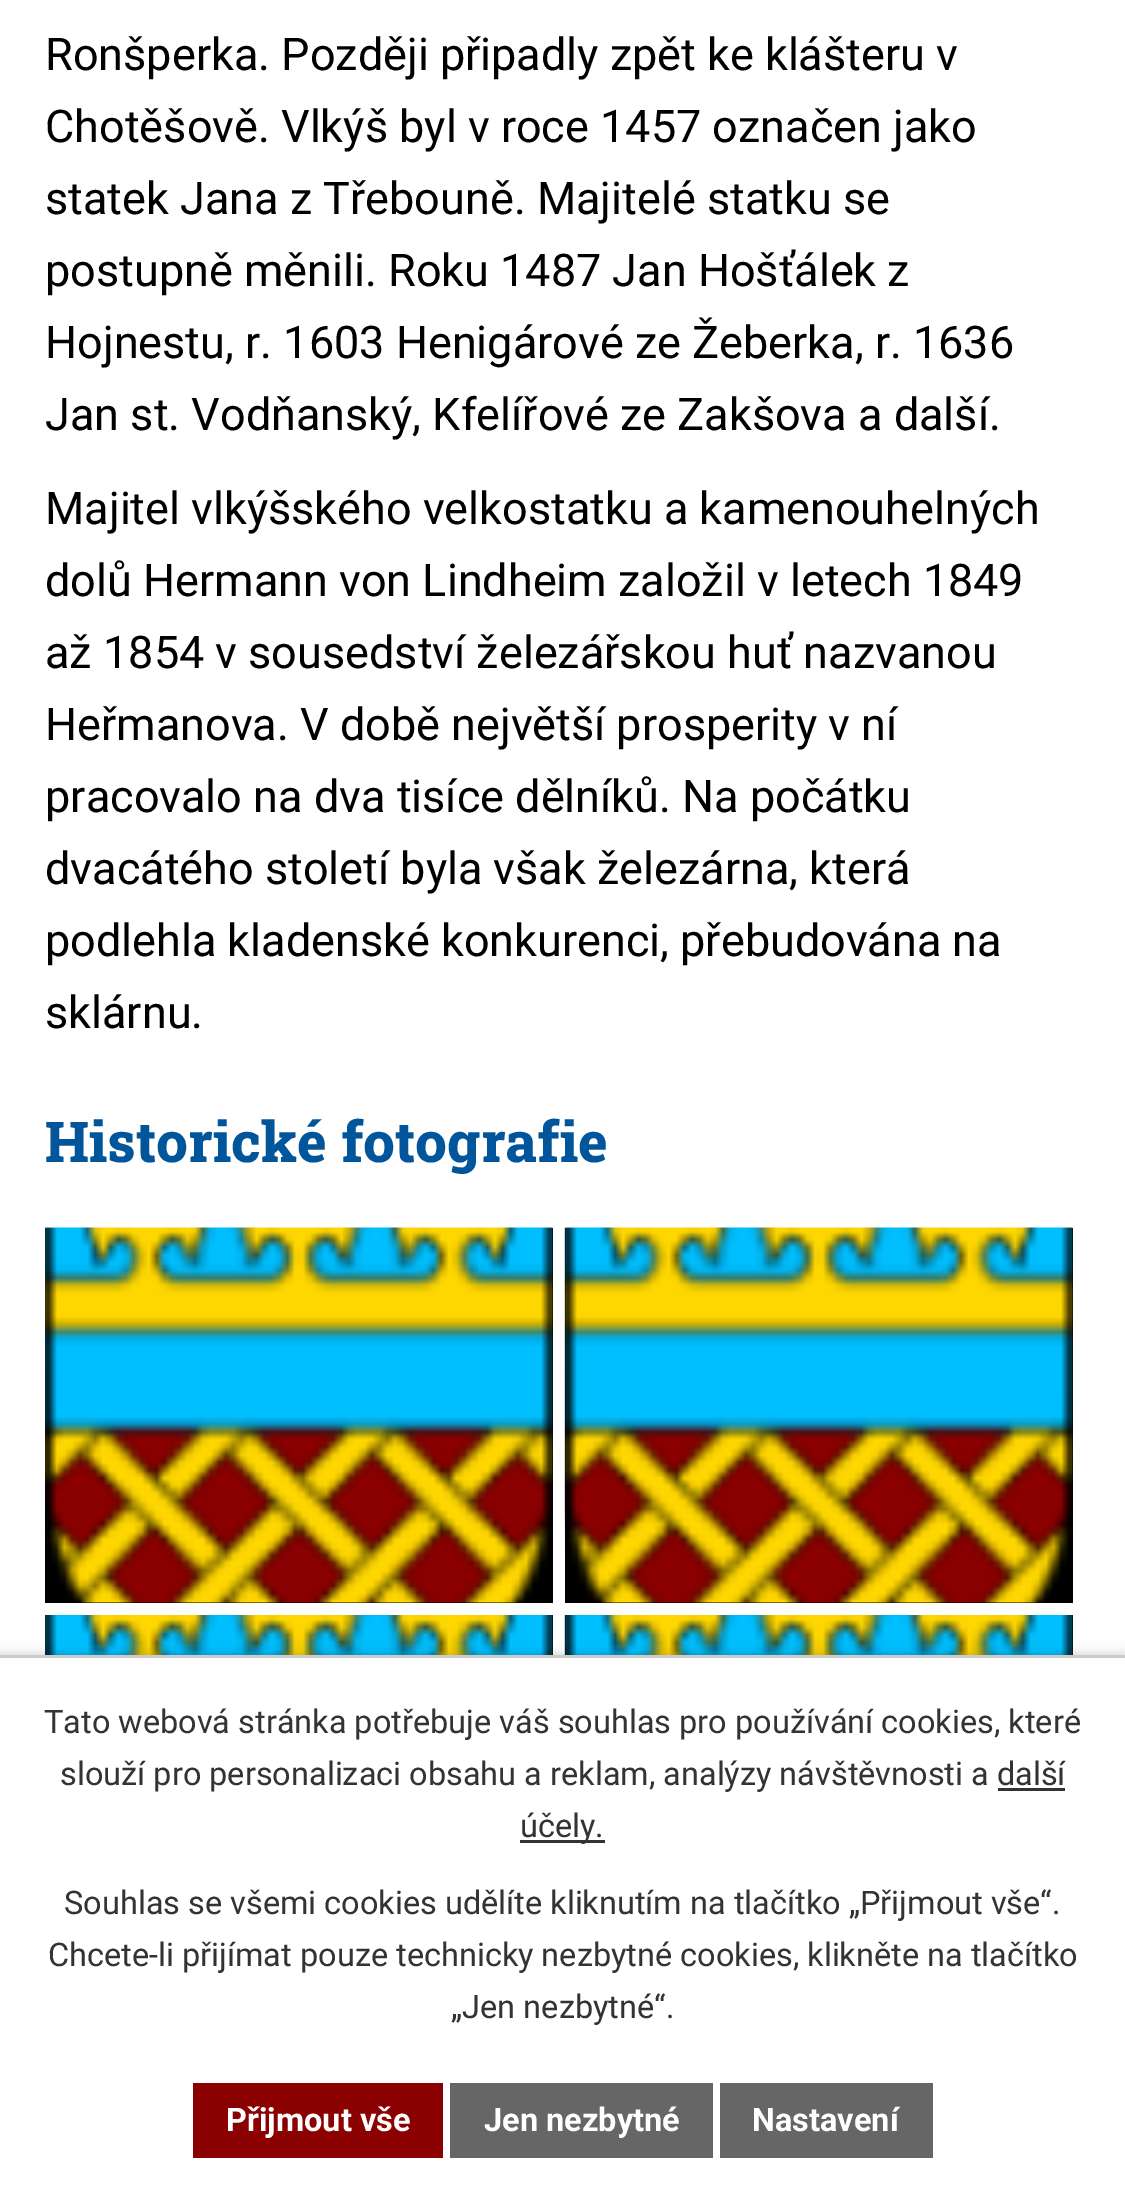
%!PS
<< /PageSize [1125 2194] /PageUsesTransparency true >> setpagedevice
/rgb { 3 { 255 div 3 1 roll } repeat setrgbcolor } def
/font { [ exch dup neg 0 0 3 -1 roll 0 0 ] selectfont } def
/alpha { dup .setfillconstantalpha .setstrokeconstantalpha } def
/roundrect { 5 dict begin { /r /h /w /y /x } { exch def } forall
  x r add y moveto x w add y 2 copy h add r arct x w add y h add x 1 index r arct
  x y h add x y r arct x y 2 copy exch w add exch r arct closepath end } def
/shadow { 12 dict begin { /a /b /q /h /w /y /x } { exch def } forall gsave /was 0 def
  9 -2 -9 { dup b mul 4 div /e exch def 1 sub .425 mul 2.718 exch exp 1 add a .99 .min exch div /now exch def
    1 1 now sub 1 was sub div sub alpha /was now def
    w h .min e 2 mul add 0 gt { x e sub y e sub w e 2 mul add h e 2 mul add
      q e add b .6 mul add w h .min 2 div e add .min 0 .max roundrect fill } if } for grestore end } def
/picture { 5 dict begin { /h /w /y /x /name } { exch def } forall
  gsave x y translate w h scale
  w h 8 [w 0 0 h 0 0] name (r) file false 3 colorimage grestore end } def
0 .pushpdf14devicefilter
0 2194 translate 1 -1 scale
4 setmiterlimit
255 255 255 rgb
0 0 1125 2194 rectfill
0 0 0 rgb
45 1228 508 375 rectfill
(img/1.rgb) 45 1227 508 376 picture
565 1228 508 375 rectfill
(img/2.rgb) 564 1227 509 376 picture
45 1615 508 40 rectfill
(img/3.rgb) 45 1615 508 40 picture
565 1615 508 40 rectfill
(img/4.rgb) 564 1615 509 40 picture
0 1655 1125 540 0 6 0.2 shadow
[
  [0 1658 1125 536 255 255 255]
  [0 1655 1125 3 204 204 204]
  [998 1788 67 3 51 51 51]
  [520 1840 85 3 51 51 51]
  [193 2083 250 75 139 0 0]
  [450 2083 263 75 102 102 102]
  [720 2083 213 75 102 102 102]
] { aload pop rgb rectfill } forall
/Roboto-Regular 45 font
0 0 0 rgb
[
  [(Ronšperka. Později připadly zpět ke klášteru v) 45 70]
  [(Chotěšově. Vlkýš byl v roce 1457 označen jako) 45 142]
  [(statek Jana z Třebouně. Majitelé statku se) 45 214]
  [(postupně měnili. Roku 1487 Jan Hošťálek z) 45 286]
  [(Hojnestu, r. 1603 Henigárové ze Žeberka, r. 1636) 45 358]
  [(Jan st. Vodňanský, Kfelířové ze Zakšova a další.) 45 430]
  [(Majitel vlkýšského velkostatku a kamenouhelných) 45 524]
  [(dolů Hermann von Lindheim založil v letech 1849) 45 596]
  [(až 1854 v sousedství železářskou huť nazvanou) 45 668]
  [(Heřmanova. V době největší prosperity v ní) 45 740]
  [(pracovalo na dva tisíce dělníků. Na počátku) 45 812]
  [(dvacátého století byla však železárna, která) 45 884]
  [(podlehla kladenské konkurenci, přebudována na) 45 956]
  [(sklárnu.) 45 1028]
] { aload pop moveto show } forall
/RobotoSlab-ExtraBold 56.25 font
1 85 154 rgb
45 1162 moveto (Historické fotografie) show
/Roboto-Regular 32.5 font
51 51 51 rgb
[
  [(Tato webová stránka potřebuje váš souhlas pro používání cookies, které) 44 1733]
  [(slouží pro personalizaci obsahu a reklam, analýzy návštěvnosti a další) 60 1785]
  [(účely.) 520 1837]
  [(Souhlas se všemi cookies udělíte kliknutím na tlačítko „Přijmout vše“.) 64 1914]
  [(Chcete-li přijímat pouze technicky nezbytné cookies, klikněte na tlačítko) 48 1966]
  [(„Jen nezbytné“.) 451 2018]
] { aload pop moveto show } forall
/Roboto-Bold 32.5 font
255 255 255 rgb
[
  [(Přijmout vše) 226 2131]
  [(Jen nezbytné) 484 2131]
  [(Nastavení) 752 2131]
] { aload pop moveto show } forall
.poppdf14devicefilter showpage
